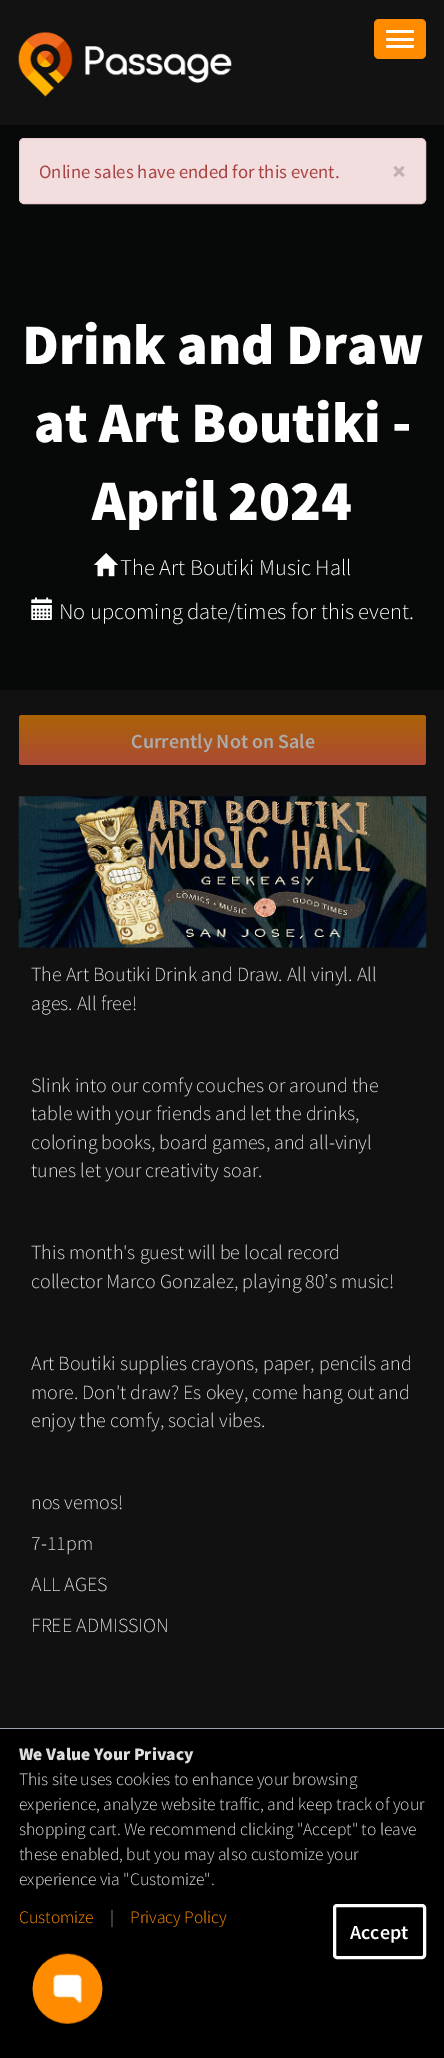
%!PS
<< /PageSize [444 2058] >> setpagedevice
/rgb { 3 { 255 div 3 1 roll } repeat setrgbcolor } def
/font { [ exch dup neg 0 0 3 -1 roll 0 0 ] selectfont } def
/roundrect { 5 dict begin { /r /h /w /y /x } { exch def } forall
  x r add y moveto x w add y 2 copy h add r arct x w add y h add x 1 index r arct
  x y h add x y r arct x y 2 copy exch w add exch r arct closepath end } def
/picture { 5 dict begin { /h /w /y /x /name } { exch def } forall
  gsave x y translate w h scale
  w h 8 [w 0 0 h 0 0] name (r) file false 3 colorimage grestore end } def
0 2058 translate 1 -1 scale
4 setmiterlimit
7 8 8 rgb
0 0 444 2058 rectfill
18 18 18 rgb
0 0 444 125 rectfill
(img/1.rgb) 18 32 214 65 picture
254 139 0 rgb
374 19 52 40 5 roundrect fill
255 255 255 rgb
386 30 28 3 1.5 roundrect fill
386 38 28 3 1.5 roundrect fill
386 45 28 3 1.5 roundrect fill
242 222 222 rgb
19.5 138.5 406 65 4.5 roundrect gsave fill grestore
235 204 209 rgb
stroke
(img/2.rgb) 93 553 25 24 picture
(img/3.rgb) 31 597 21 23 picture
17 17 17 rgb
0 690 444 1038 rectfill
gsave 19 715 407 50 4 roundrect clip newpath
<< /ShadingType 2 /ColorSpace /DeviceRGB /Coords [223 715 223 765] /Extend [true true] /Function << /FunctionType 2 /Domain [0 1] /C0 [0.671 0.388 0.024] /C1 [0.675 0.29 0.212] /N 1 >> >> shfill grestore
(img/4.rgb) 18 796 409 152 picture
0 0 0 rgb
0 1729 444 329 rectfill
156 163 175 rgb
0 1728 444 1 rectfill
255 255 255 rgb
3 setlinewidth
334.5 1905.5 90 52 2.5 roundrect stroke
(img/5.rgb) 32 1953 71 71 picture
/SourceSansPro-Regular 18.75 font
169 68 66 rgb
39 178 moveto (Online sales have ended for this event.) show
/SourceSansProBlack-Black 26 font
194 178 178 rgb
392 180 moveto (×) show
/SourceSansProBlack-Black 57.5 font
255 255 255 rgb
[
  [(Drink and Draw) 22 364]
  [(at Art Boutiki -) 34 442]
  [(April 2024) 92 520]
] { aload pop moveto show } forall
/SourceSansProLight-Light 22.5 font
120 575 moveto (The Art Boutiki Music Hall) show
59 619 moveto (No upcoming date/times for this event.) show
/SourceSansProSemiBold-SemiBold 20 font
172 172 172 rgb
131 748 moveto (Currently Not on Sale) show
/SourceSansProLight-Light 20 font
221 221 221 rgb
[
  [(The Art Boutiki Drink and Draw. All vinyl. All) 31 981]
  [(ages. All free!) 31 1010]
  [(Slink into our comfy couches or around the) 31 1092]
  [(table with your friends and let the drinks,) 31 1120]
  [(coloring books, board games, and all-vinyl) 31 1149]
  [(tunes let your creativity soar.) 31 1177]
  [(This month's guest will be local record) 31 1259]
  [(collector Marco Gonzalez, playing 80’s music!) 31 1288]
  [(Art Boutiki supplies crayons, paper, pencils and) 31 1370]
  [(more. Don't draw? Es okey, come hang out and) 31 1399]
  [(enjoy the comfy, social vibes.) 31 1427]
  [(nos vemos!) 31 1509]
  [(7-11pm) 31 1550]
  [(ALL AGES) 31 1591]
  [(FREE ADMISSION) 31 1632]
] { aload pop moveto show } forall
/SourceSansProBlack-Black 17.5 font
19 1760 moveto (We Value Your Privacy) show
/SourceSansProLight-Light 17.5 font
[
  [(This site uses cookies to enhance your browsing) 19 1785]
  [(experience, analyze website traffic, and keep track of your) 19 1810]
  [(shopping cart. We recommend clicking "Accept" to leave) 19 1835]
  [(these enabled, but you may also customize your) 19 1860]
  [(experience via "Customize".) 19 1885]
] { aload pop moveto show } forall
254 139 0 rgb
19 1923 moveto (Customize) show
221 221 221 rgb
110 1923 moveto (|) show
254 139 0 rgb
130 1923 moveto (Privacy Policy) show
/SourceSansProSemiBold-SemiBold 20 font
255 255 255 rgb
350 1939 moveto (Accept) show
showpage
